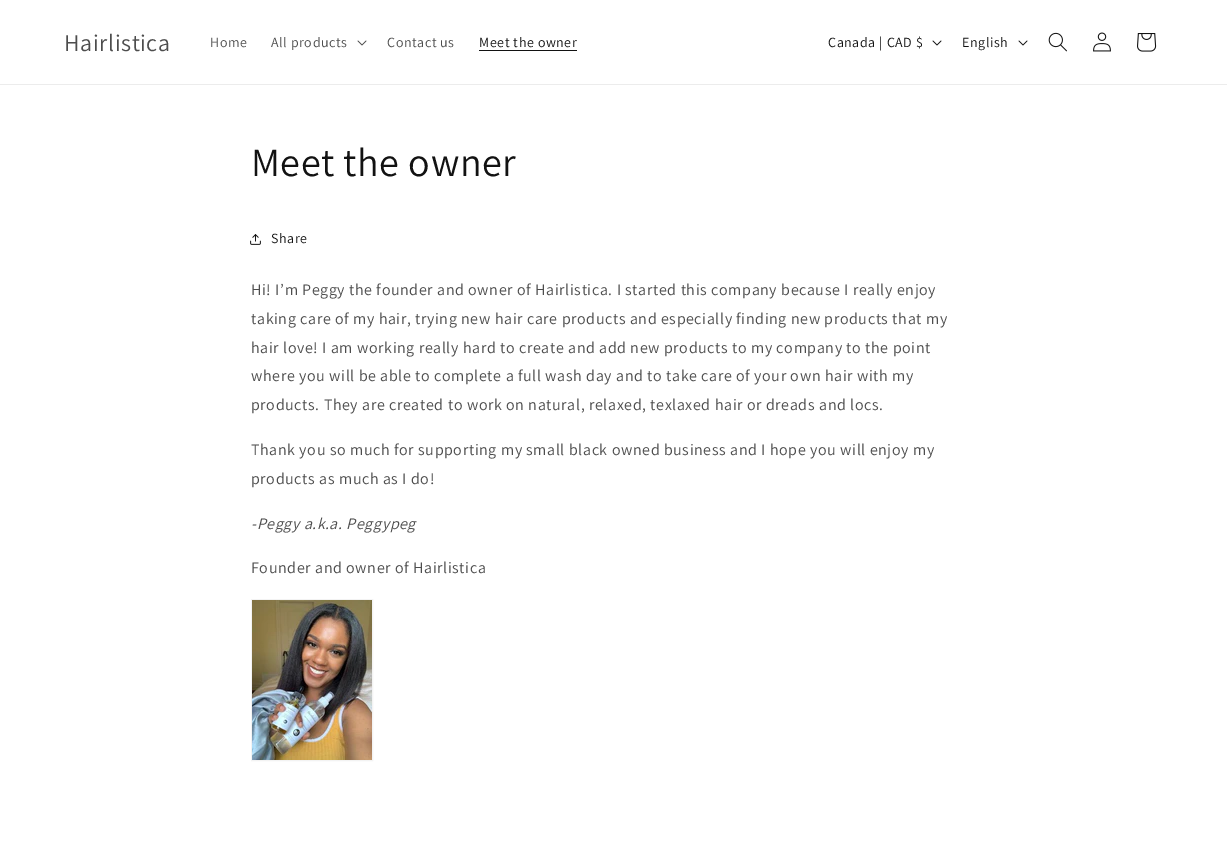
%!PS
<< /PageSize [1227 849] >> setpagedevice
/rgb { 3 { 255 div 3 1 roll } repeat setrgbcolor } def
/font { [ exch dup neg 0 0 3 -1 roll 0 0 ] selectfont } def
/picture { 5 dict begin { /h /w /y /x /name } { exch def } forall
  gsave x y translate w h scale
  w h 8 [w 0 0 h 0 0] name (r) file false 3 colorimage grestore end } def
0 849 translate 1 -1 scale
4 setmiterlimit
255 255 255 rgb
0 0 1227 849 rectfill
236 236 236 rgb
0 84 1227 1 rectfill
(img/1.rgb) 357 40 10 6 picture
18 18 18 rgb
479 50 98 1 rectfill
(img/2.rgb) 932 40 10 6 picture
(img/2.rgb) 1018 40 10 6 picture
(img/3.rgb) 1048 32 19 20 picture
(img/4.rgb) 1093 32 18 20 picture
(img/5.rgb) 1137 33 20 19 picture
(img/6.rgb) 250 234 11 11 picture
243 243 243 rgb
251.5 599.5 121 161 rectstroke
(img/7.rgb) 252 600 120 160 picture
/Assistant-Regular 24 font
77 77 77 rgb
64 51 moveto 0.6 0 (Hairlistica) ashow
/Assistant-Regular 14 font
210 47 moveto 0.6 0 (Home) ashow
271 47 moveto 0.6 0 (All products) ashow
387 47 moveto 0.6 0 (Contact us) ashow
18 18 18 rgb
479 47 moveto 0.6 0 (Meet the owner) ashow
828 47 moveto 0.6 0 (Canada | CAD $) ashow
962 47 moveto 0.6 0 (English) ashow
/Assistant-Regular 40 font
251 176 moveto 0.6 0 (Meet the owner) ashow
/Assistant-Regular 14 font
271 243 moveto 0.6 0 (Share) ashow
/Assistant-Regular 16 font
77 77 77 rgb
251 295 moveto 0.6 0 (Hi! I’m Peggy the founder and owner of Hairlistica. I started this company because I really enjoy) ashow
251 324 moveto 0.6 0 (taking care of my hair, trying new hair care products and especially finding new products that my) ashow
251 353 moveto 0.6 0 (hair love! I am working really hard to create and add new products to my company to the point) ashow
251 381 moveto 0.6 0 (where you will be able to complete a full wash day and to take care of your own hair with my) ashow
251 410 moveto 0.6 0 (products. They are created to work on natural, relaxed, texlaxed hair or dreads and locs.) ashow
251 455 moveto 0.6 0 (Thank you so much for supporting my small black owned business and I hope you will enjoy my) ashow
251 484 moveto 0.6 0 (products as much as I do!) ashow
/Assistant-Italic 16 font
251 529 moveto 0.6 0 (-Peggy a.k.a. Peggypeg) ashow
/Assistant-Regular 16 font
251 573 moveto 0.6 0 (Founder and owner of Hairlistica) ashow
showpage
